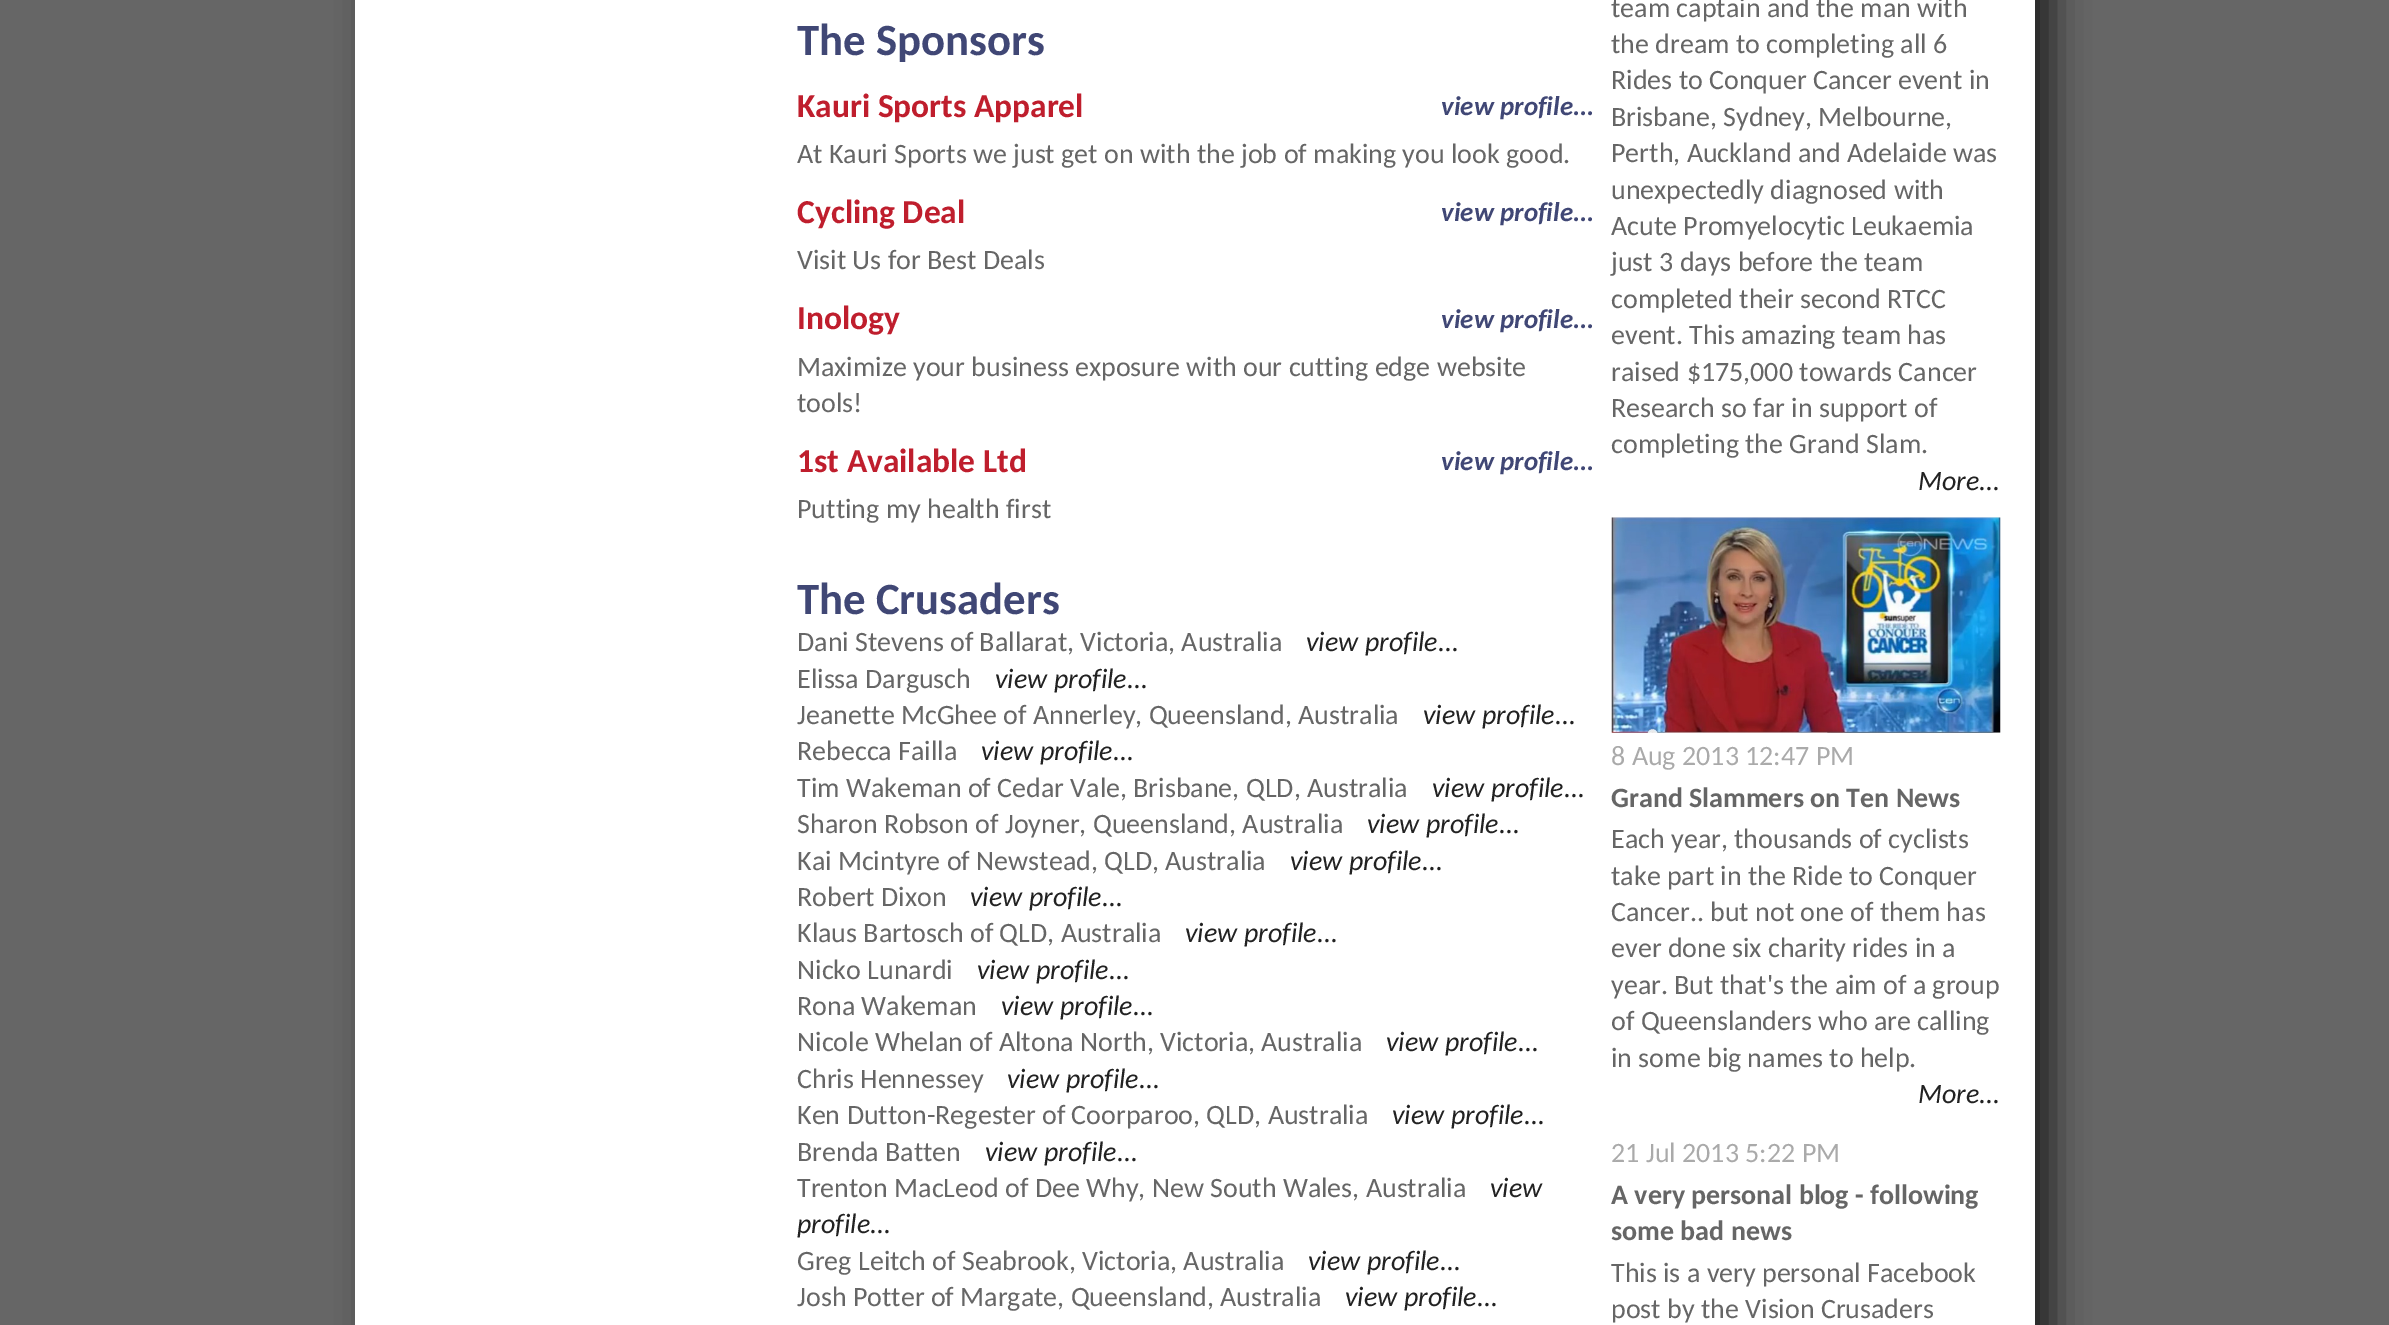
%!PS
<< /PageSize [2389 1325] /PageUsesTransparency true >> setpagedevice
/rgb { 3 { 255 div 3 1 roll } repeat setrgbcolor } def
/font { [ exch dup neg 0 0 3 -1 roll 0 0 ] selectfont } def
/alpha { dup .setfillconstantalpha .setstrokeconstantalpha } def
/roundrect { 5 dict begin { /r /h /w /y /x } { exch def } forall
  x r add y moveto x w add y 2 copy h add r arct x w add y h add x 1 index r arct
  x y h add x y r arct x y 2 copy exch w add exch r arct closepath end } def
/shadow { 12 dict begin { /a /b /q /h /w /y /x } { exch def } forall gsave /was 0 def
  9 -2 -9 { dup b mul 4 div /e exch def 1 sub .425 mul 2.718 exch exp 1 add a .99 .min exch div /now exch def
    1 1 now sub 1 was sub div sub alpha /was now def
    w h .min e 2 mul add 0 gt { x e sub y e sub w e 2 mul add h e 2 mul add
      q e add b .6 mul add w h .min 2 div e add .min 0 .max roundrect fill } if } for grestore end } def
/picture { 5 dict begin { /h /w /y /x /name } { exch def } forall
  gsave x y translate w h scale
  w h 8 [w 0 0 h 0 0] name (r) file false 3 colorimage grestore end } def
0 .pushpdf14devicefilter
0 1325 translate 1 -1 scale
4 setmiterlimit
102 102 102 rgb
0 0 2389 1325 rectfill
34 34 34 rgb
373 -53 1680 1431 0 17.5 1 shadow
255 255 255 rgb
355 0 1680 1325 rectfill
(img/1.rgb) 1611 517 390 216 picture
/Carlito-Bold 44.75 font
64 71 117 rgb
797 55 moveto (The Sponsors) show
/Carlito-Bold 33.5 font
191 30 45 rgb
797 117 moveto (Kauri Sports Apparel) show
/Carlito-BoldItalic 27 font
64 71 117 rgb
1441 115 moveto (view profile...) show
/Carlito-Regular 28 font
102 102 102 rgb
797 163 moveto (At Kauri Sports we just get on with the job of making you look good.) show
/Carlito-Bold 33.5 font
191 30 45 rgb
797 223 moveto (Cycling Deal) show
/Carlito-BoldItalic 27 font
64 71 117 rgb
1441 221 moveto (view profile...) show
/Carlito-Regular 28 font
102 102 102 rgb
797 269 moveto (Visit Us for Best Deals) show
/Carlito-Bold 33.5 font
191 30 45 rgb
797 329 moveto (Inology) show
/Carlito-BoldItalic 27 font
64 71 117 rgb
1441 328 moveto (view profile...) show
/Carlito-Regular 28 font
102 102 102 rgb
797 376 moveto (Maximize your business exposure with our cutting edge website) show
797 412 moveto (tools!) show
/Carlito-Bold 33.5 font
191 30 45 rgb
797 472 moveto (1st Available Ltd) show
/Carlito-BoldItalic 27 font
64 71 117 rgb
1441 470 moveto (view profile...) show
/Carlito-Regular 28 font
102 102 102 rgb
797 518 moveto (Putting my health first) show
/Carlito-Bold 44.75 font
64 71 117 rgb
797 614 moveto (The Crusaders) show
/Carlito-Regular 28 font
102 102 102 rgb
797 651 moveto (Dani Stevens of Ballarat, Victoria, Australia) show
/Carlito-Italic 28 font
34 34 34 rgb
1306 651 moveto (view profile...) show
/Carlito-Regular 28 font
102 102 102 rgb
797 688 moveto (Elissa Dargusch) show
/Carlito-Italic 28 font
34 34 34 rgb
995 688 moveto (view profile...) show
/Carlito-Regular 28 font
102 102 102 rgb
797 724 moveto (Jeanette McGhee of Annerley, Queensland, Australia) show
/Carlito-Italic 28 font
34 34 34 rgb
1423 724 moveto (view profile...) show
/Carlito-Regular 28 font
102 102 102 rgb
797 760 moveto (Rebecca Failla) show
/Carlito-Italic 28 font
34 34 34 rgb
981 760 moveto (view profile...) show
/Carlito-Regular 28 font
102 102 102 rgb
797 797 moveto (Tim Wakeman of Cedar Vale, Brisbane, QLD, Australia) show
/Carlito-Italic 28 font
34 34 34 rgb
1432 797 moveto (view profile...) show
/Carlito-Regular 28 font
102 102 102 rgb
797 833 moveto (Sharon Robson of Joyner, Queensland, Australia) show
/Carlito-Italic 28 font
34 34 34 rgb
1367 833 moveto (view profile...) show
/Carlito-Regular 28 font
102 102 102 rgb
797 870 moveto (Kai Mcintyre of Newstead, QLD, Australia) show
/Carlito-Italic 28 font
34 34 34 rgb
1290 870 moveto (view profile...) show
/Carlito-Regular 28 font
102 102 102 rgb
797 906 moveto (Robert Dixon) show
/Carlito-Italic 28 font
34 34 34 rgb
970 906 moveto (view profile...) show
/Carlito-Regular 28 font
102 102 102 rgb
797 942 moveto (Klaus Bartosch of QLD, Australia) show
/Carlito-Italic 28 font
34 34 34 rgb
1185 942 moveto (view profile...) show
/Carlito-Regular 28 font
102 102 102 rgb
797 979 moveto (Nicko Lunardi) show
/Carlito-Italic 28 font
34 34 34 rgb
977 979 moveto (view profile...) show
/Carlito-Regular 28 font
102 102 102 rgb
797 1015 moveto (Rona Wakeman) show
/Carlito-Italic 28 font
34 34 34 rgb
1001 1015 moveto (view profile...) show
/Carlito-Regular 28 font
102 102 102 rgb
797 1051 moveto (Nicole Whelan of Altona North, Victoria, Australia) show
/Carlito-Italic 28 font
34 34 34 rgb
1386 1051 moveto (view profile...) show
/Carlito-Regular 28 font
102 102 102 rgb
797 1088 moveto (Chris Hennessey) show
/Carlito-Italic 28 font
34 34 34 rgb
1007 1088 moveto (view profile...) show
/Carlito-Regular 28 font
102 102 102 rgb
797 1124 moveto (Ken Dutton-Regester of Coorparoo, QLD, Australia) show
/Carlito-Italic 28 font
34 34 34 rgb
1392 1124 moveto (view profile...) show
/Carlito-Regular 28 font
102 102 102 rgb
797 1161 moveto (Brenda Batten) show
/Carlito-Italic 28 font
34 34 34 rgb
985 1161 moveto (view profile...) show
/Carlito-Regular 28 font
102 102 102 rgb
797 1197 moveto (Trenton MacLeod of Dee Why, New South Wales, Australia) show
/Carlito-Italic 28 font
34 34 34 rgb
1490 1197 moveto (view) show
797 1233 moveto (profile...) show
/Carlito-Regular 28 font
102 102 102 rgb
797 1270 moveto (Greg Leitch of Seabrook, Victoria, Australia) show
/Carlito-Italic 28 font
34 34 34 rgb
1308 1270 moveto (view profile...) show
/Carlito-Regular 28 font
102 102 102 rgb
797 1306 moveto (Josh Potter of Margate, Queensland, Australia) show
/Carlito-Italic 28 font
34 34 34 rgb
1345 1306 moveto (view profile...) show
/Carlito-Regular 28 font
102 102 102 rgb
[
  [(team captain and the man with) 1611 17]
  [(the dream to completing all 6) 1611 53]
  [(Rides to Conquer Cancer event in) 1611 89]
  [(Brisbane, Sydney, Melbourne,) 1611 126]
  [(Perth, Auckland and Adelaide was) 1611 162]
  [(unexpectedly diagnosed with) 1611 199]
  [(Acute Promyelocytic Leukaemia) 1611 235]
  [(just 3 days before the team) 1611 271]
  [(completed their second RTCC) 1611 308]
  [(event. This amazing team has) 1611 344]
  [(raised $175,000 towards Cancer) 1611 381]
  [(Research so far in support of) 1611 417]
  [(completing the Grand Slam.) 1611 453]
] { aload pop moveto show } forall
/Carlito-Italic 28 font
34 34 34 rgb
1918 490 moveto (More...) show
/Carlito-Regular 28 font
170 170 170 rgb
1611 765 moveto (8 Aug 2013 12:47 PM) show
/Carlito-Bold 28 font
102 102 102 rgb
1611 807 moveto (Grand Slammers on Ten News) show
/Carlito-Regular 28 font
[
  [(Each year, thousands of cyclists) 1611 848]
  [(take part in the Ride to Conquer) 1611 885]
  [(Cancer.. but not one of them has) 1611 921]
  [(ever done six charity rides in a) 1611 957]
  [(year. But that's the aim of a group) 1611 994]
  [(of Queenslanders who are calling) 1611 1030]
  [(in some big names to help.) 1611 1067]
] { aload pop moveto show } forall
/Carlito-Italic 28 font
34 34 34 rgb
1918 1103 moveto (More...) show
/Carlito-Regular 28 font
170 170 170 rgb
1611 1162 moveto (21 Jul 2013 5:22 PM) show
/Carlito-Bold 28 font
102 102 102 rgb
1611 1204 moveto (A very personal blog - following) show
1611 1240 moveto (some bad news) show
/Carlito-Regular 28 font
1611 1282 moveto (This is a very personal Facebook) show
1611 1318 moveto (post by the Vision Crusaders) show
.poppdf14devicefilter showpage
